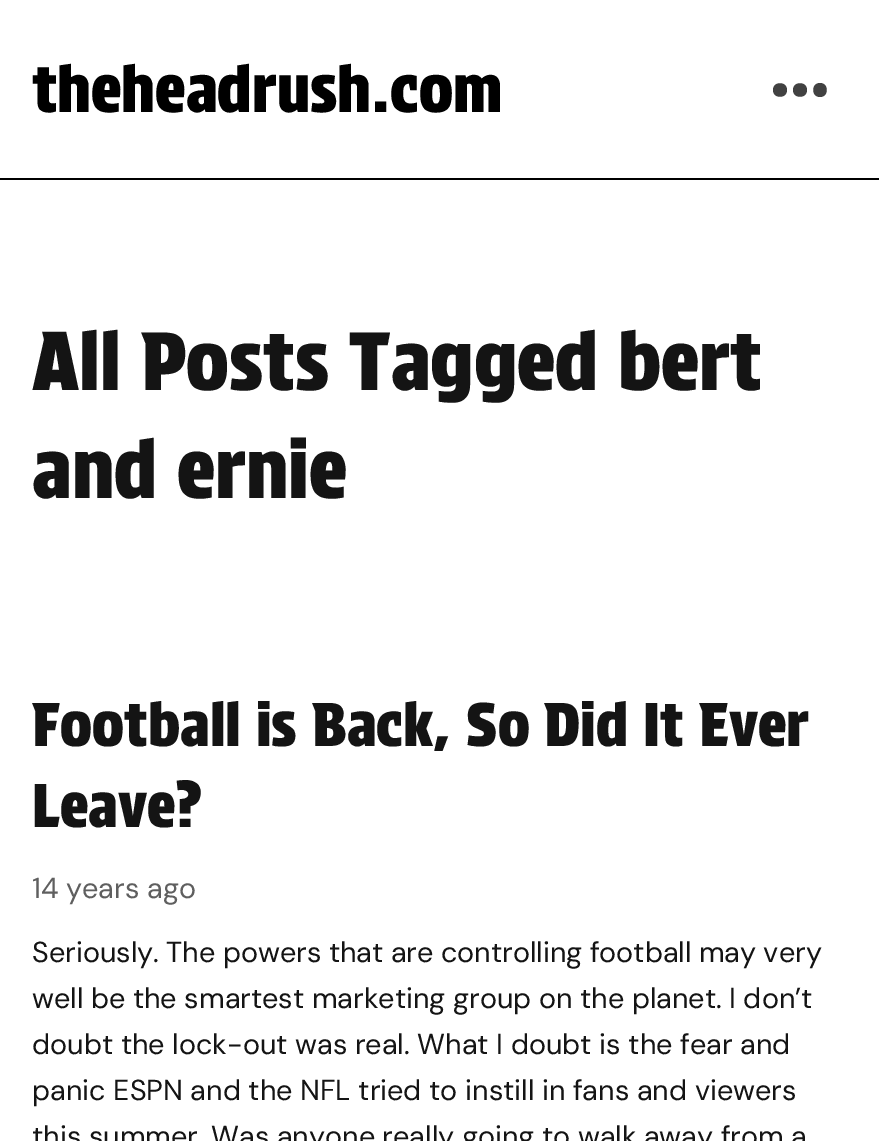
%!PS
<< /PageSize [879 1141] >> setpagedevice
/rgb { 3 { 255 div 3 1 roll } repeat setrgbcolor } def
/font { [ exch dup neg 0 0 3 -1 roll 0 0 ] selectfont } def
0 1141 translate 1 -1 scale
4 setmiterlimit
255 255 255 rgb
0 0 879 1141 rectfill
0 0 0 rgb
0 178 879 2 rectfill
65 65 65 rgb
773 90 moveto 773 81 787 81 787 90 curveto 787 99 773 99 773 90 curveto closepath 793 90 moveto 793 81 807 81 807 90 curveto 807 99 793 99 793 90 curveto closepath 820 83 moveto 829 83 829 97 820 97 curveto 811 97 811 83 820 83 curveto closepath fill
/ProtestStrike-Regular 64 font
0 0 0 rgb
32 112 moveto (theheadrush.com) show
/ProtestStrike-Regular 80 font
20 20 20 rgb
32 390 moveto (All Posts Tagged bert) show
32 498 moveto (and ernie) show
/ProtestStrike-Regular 59.8 font
32 746 moveto (Football is Back, So Did It Ever) show
32 827 moveto (Leave?) show
/DMSans-Regular 28.8 font
95 95 95 rgb
32 898 moveto (14 years ago) show
20 20 20 rgb
32 962 moveto -0.25 0 32 (Seriously. The powers that are controlling football may very) widthshow
32 1008 moveto -0.1 0 32 (well be the smartest marketing group on the planet. I don’t) widthshow
32 1054 moveto (doubt the lock-out was real. What I doubt is the fear and) show
32 1100 moveto (panic ESPN and the NFL tried to instill in fans and viewers) show
32 1146 moveto -0.1 0 32 (this summer. Was anyone really going to walk away from a) widthshow
showpage
